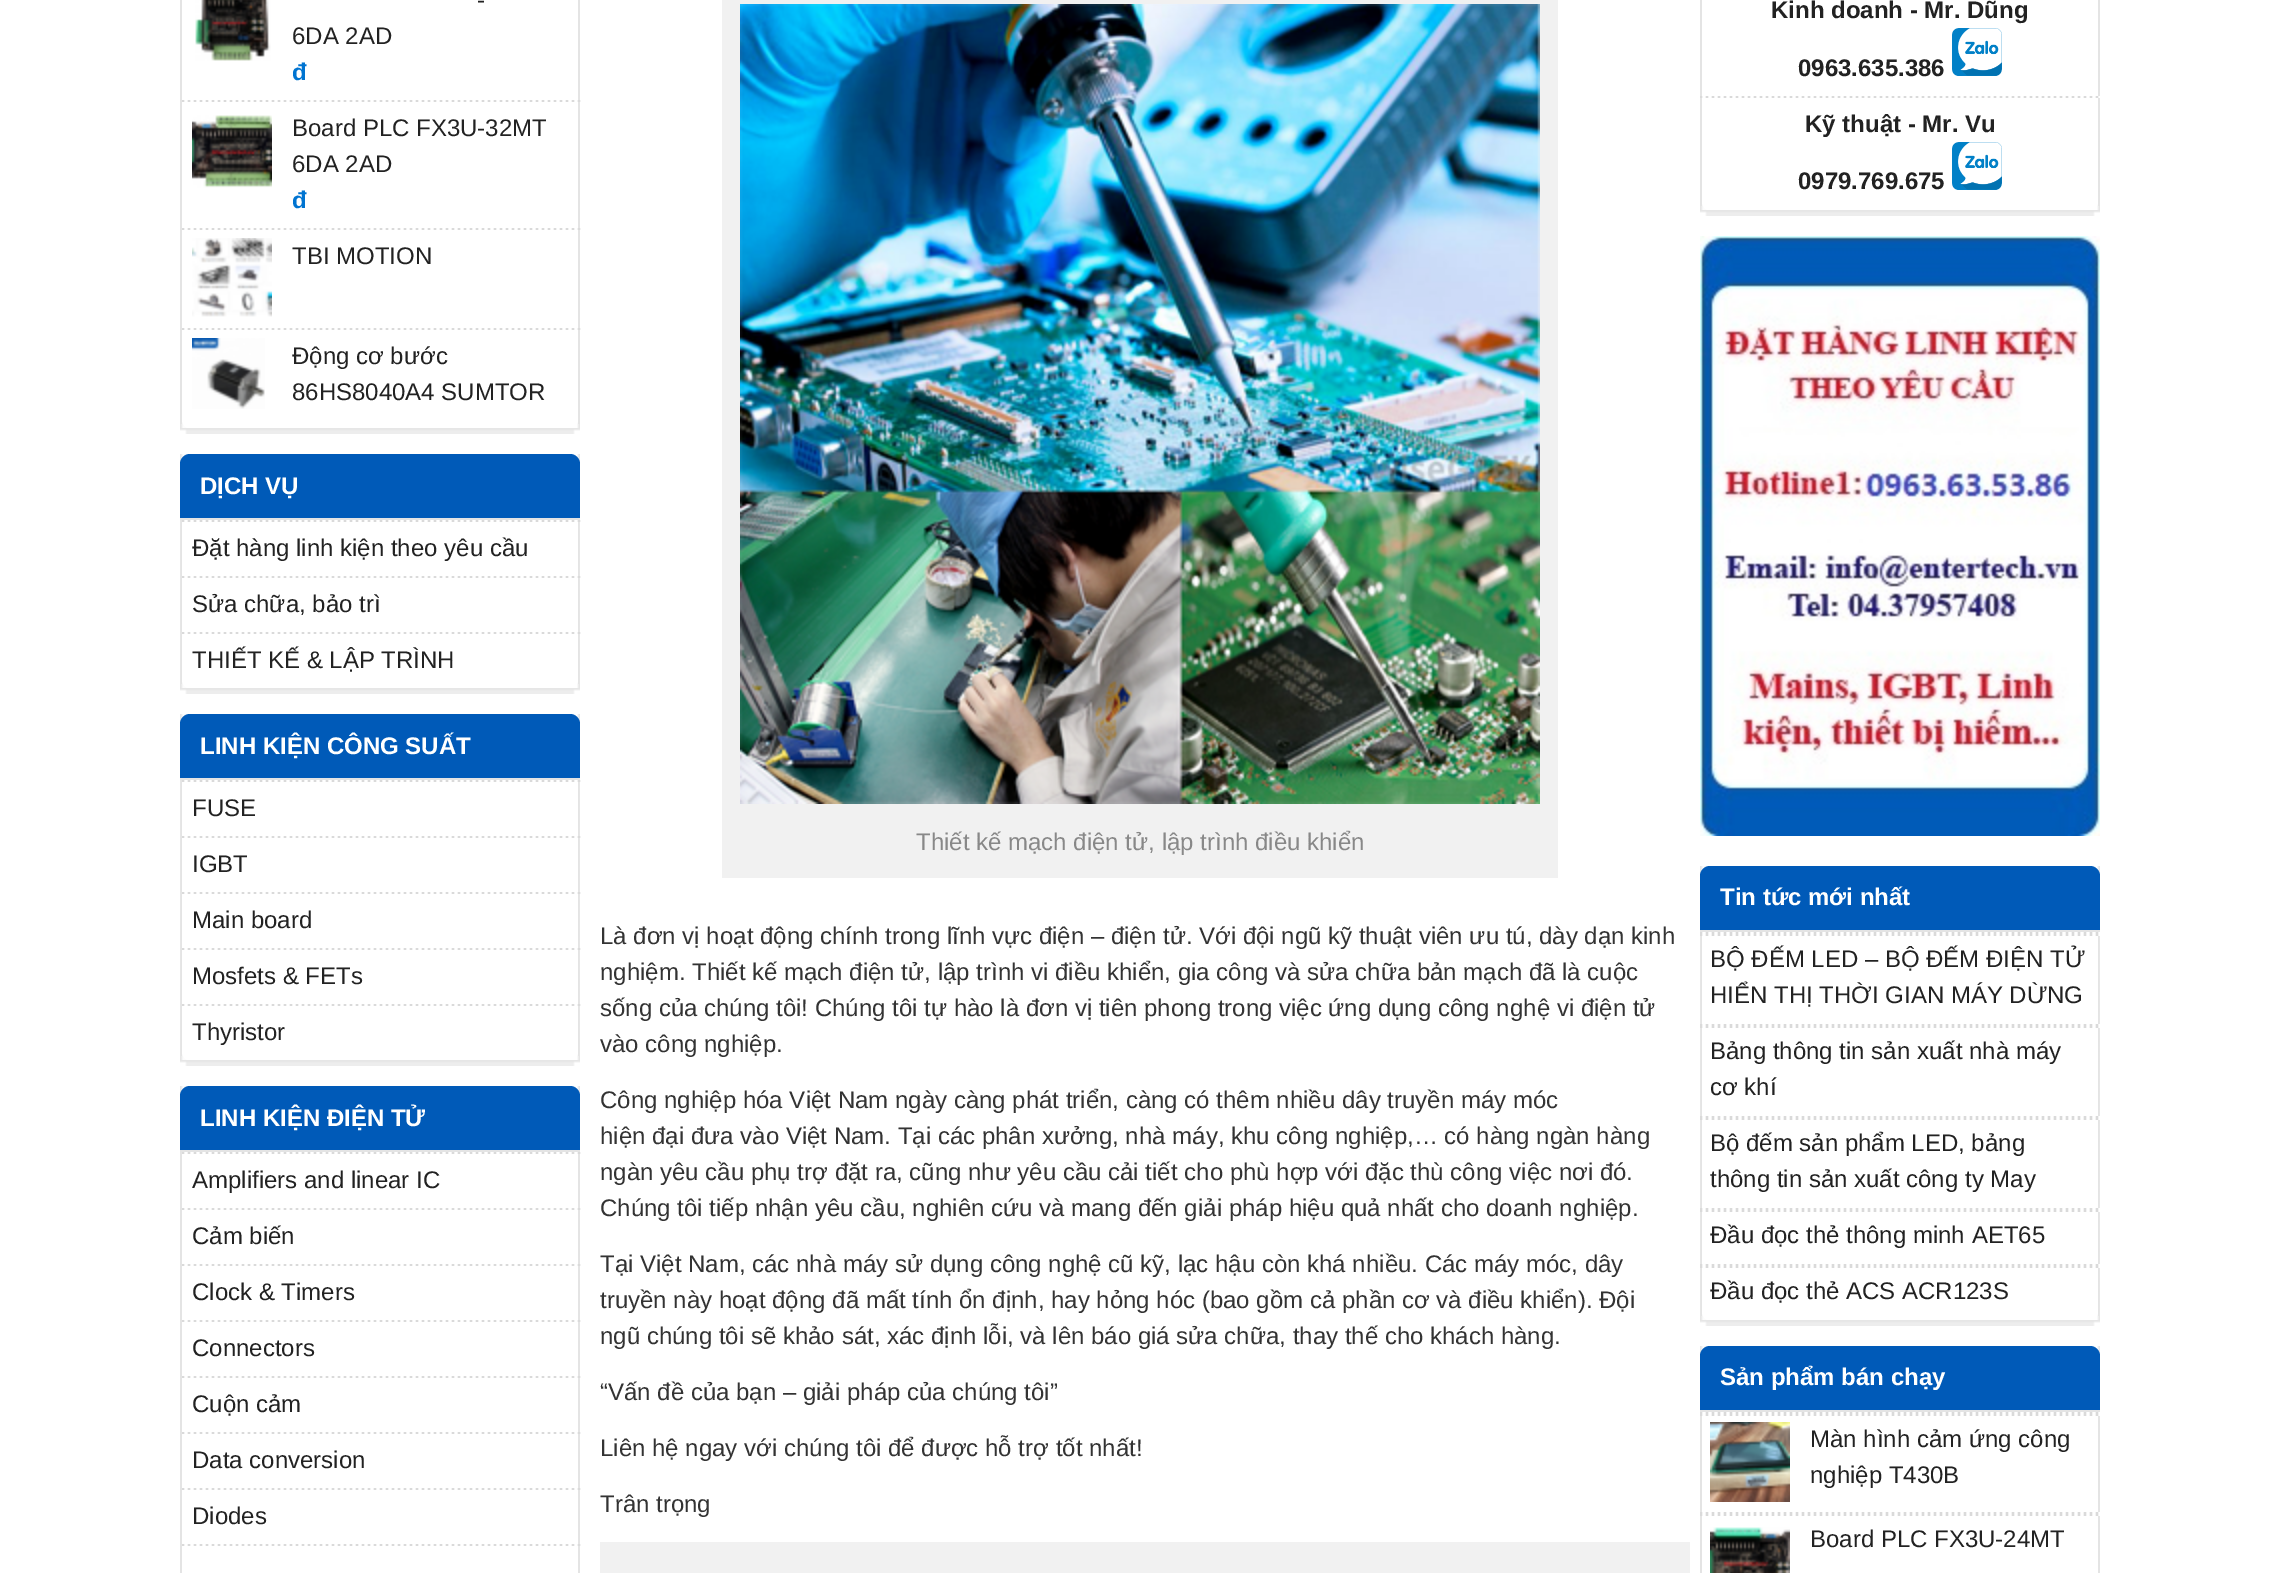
%!PS
<< /PageSize [2280 1573] >> setpagedevice
/rgb { 3 { 255 div 3 1 roll } repeat setrgbcolor } def
/font { [ exch dup neg 0 0 3 -1 roll 0 0 ] selectfont } def
/picture { 5 dict begin { /h /w /y /x /name } { exch def } forall
  gsave x y translate w h scale
  w h 8 [w 0 0 h 0 0] name (r) file false 3 colorimage grestore end } def
0 1573 translate 1 -1 scale
4 setmiterlimit
255 255 255 rgb
0 0 2280 1573 rectfill
(img/1.rgb) 180 420 400 8 picture
182 -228 moveto 578 -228 lineto 578 420 lineto 578 424 575 428 572 428 curveto 188 428 lineto 185 428 182 424 182 420 curveto closepath fill
228 228 228 rgb
578 0 2 424 rectfill
180 0 2 424 rectfill
(img/2.rgb) 195 0 76 61 picture
(img/3.rgb) 182 100 399 2 picture
(img/4.rgb) 192 115 80 73 picture
(img/3.rgb) 182 228 399 2 picture
(img/5.rgb) 192 238 80 79 picture
(img/3.rgb) 182 328 399 2 picture
(img/6.rgb) 192 338 73 71 picture
(img/7.rgb) 180 428 400 6 picture
(img/8.rgb) 180 454 400 234 picture
0 90 184 rgb
190 454 moveto 570 454 lineto 575.5 454 580 458.5 580 464 curveto 580 518 lineto 180 518 lineto 180 464 lineto 180 458.5 184.5 454 190 454 curveto closepath fill
255 255 255 rgb
182 520 moveto 578 520 lineto 578 680 lineto 578 684 575 688 572 688 curveto 188 688 lineto 185 688 182 684 182 680 curveto closepath fill
[
  [180 518 400 2 228 228 228]
  [578 518 1 166 228 228 228]
  [181 518 1 166 228 228 228]
] { aload pop rgb rectfill } forall
(img/3.rgb) 182 520 399 2 picture
(img/3.rgb) 182 576 399 2 picture
(img/3.rgb) 182 632 399 2 picture
(img/7.rgb) 180 688 400 6 picture
(img/9.rgb) 180 714 400 346 picture
0 90 184 rgb
190 714 moveto 570 714 lineto 575.5 714 580 718.5 580 724 curveto 580 778 lineto 180 778 lineto 180 724 lineto 180 718.5 184.5 714 190 714 curveto closepath fill
255 255 255 rgb
182 780 moveto 578 780 lineto 578 1052 lineto 578 1056 575 1060 572 1060 curveto 188 1060 lineto 185 1060 182 1056 182 1052 curveto closepath fill
[
  [180 778 400 2 228 228 228]
  [578 778 1 278 228 228 228]
  [181 778 1 278 228 228 228]
] { aload pop rgb rectfill } forall
(img/3.rgb) 182 780 399 2 picture
(img/3.rgb) 182 836 399 2 picture
(img/3.rgb) 182 892 399 2 picture
(img/3.rgb) 182 948 399 2 picture
(img/3.rgb) 182 1004 399 2 picture
(img/7.rgb) 180 1060 400 6 picture
(img/10.rgb) 180 1086 400 10 picture
0 90 184 rgb
190 1086 moveto 570 1086 lineto 575.5 1086 580 1090.5 580 1096 curveto 580 1150 lineto 180 1150 lineto 180 1096 lineto 180 1090.5 184.5 1086 190 1086 curveto closepath fill
[
  [180 1150 400 2 228 228 228]
  [578 1150 2 423 228 228 228]
  [180 1150 2 423 228 228 228]
] { aload pop rgb rectfill } forall
(img/3.rgb) 182 1152 399 2 picture
(img/3.rgb) 182 1208 399 2 picture
(img/3.rgb) 182 1264 399 2 picture
(img/3.rgb) 182 1320 399 2 picture
(img/3.rgb) 182 1376 399 2 picture
(img/3.rgb) 182 1432 399 2 picture
(img/3.rgb) 182 1488 399 2 picture
(img/3.rgb) 182 1544 399 2 picture
241 241 241 rgb
722 0 836 878 rectfill
(img/11.rgb) 740 4 800 800 picture
600 1542 1090 31 rectfill
(img/1.rgb) 1700 202 400 8 picture
255 255 255 rgb
1702 -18 moveto 2098 -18 lineto 2098 202 lineto 2098 206 2095 210 2092 210 curveto 1708 210 lineto 1705 210 1702 206 1702 202 curveto closepath fill
228 228 228 rgb
2098 0 2 206 rectfill
1700 0 2 206 rectfill
(img/12.rgb) 1952 28 50 48 picture
(img/13.rgb) 1700 96 400 2 picture
(img/12.rgb) 1952 142 50 48 picture
(img/7.rgb) 1700 210 400 6 picture
(img/14.rgb) 1700 236 400 600 picture
(img/15.rgb) 1700 866 400 454 picture
0 90 184 rgb
1710 866 moveto 2090 866 lineto 2095.5 866 2100 870.5 2100 876 curveto 2100 930 lineto 1700 930 lineto 1700 876 lineto 1700 870.5 1704.5 866 1710 866 curveto closepath fill
255 255 255 rgb
1702 932 moveto 2098 932 lineto 2098 1312 lineto 2098 1316 2095 1320 2092 1320 curveto 1708 1320 lineto 1705 1320 1702 1316 1702 1312 curveto closepath fill
[
  [1700 930 400 2 228 228 228]
  [2098 930 1 386 228 228 228]
  [1701 930 1 386 228 228 228]
] { aload pop rgb rectfill } forall
(img/16.rgb) 1700 932 400 4 picture
(img/16.rgb) 1700 1024 400 4 picture
(img/16.rgb) 1700 1116 400 4 picture
(img/16.rgb) 1700 1208 400 4 picture
(img/16.rgb) 1700 1264 400 4 picture
(img/7.rgb) 1700 1320 400 6 picture
(img/10.rgb) 1700 1346 400 10 picture
0 90 184 rgb
1710 1346 moveto 2090 1346 lineto 2095.5 1346 2100 1350.5 2100 1356 curveto 2100 1410 lineto 1700 1410 lineto 1700 1356 lineto 1700 1350.5 1704.5 1346 1710 1346 curveto closepath fill
[
  [1700 1410 400 2 228 228 228]
  [2098 1410 2 163 228 228 228]
  [1700 1410 2 163 228 228 228]
] { aload pop rgb rectfill } forall
(img/16.rgb) 1700 1412 400 4 picture
(img/17.rgb) 1710 1422 80 80 picture
(img/16.rgb) 1700 1512 400 4 picture
(img/18.rgb) 1710 1527 80 46 picture
/LiberationSans-Regular 24 font
34 34 34 rgb
477 8 moveto (-) show
292 44 moveto (6DA 2AD) show
/LiberationSans-Bold 24 font
0 116 209 rgb
292 80 moveto (đ) show
/LiberationSans-Regular 24 font
34 34 34 rgb
292 136 moveto (Board PLC FX3U-32MT) show
292 172 moveto (6DA 2AD) show
/LiberationSans-Bold 24 font
0 116 209 rgb
292 208 moveto (đ) show
/LiberationSans-Regular 24 font
34 34 34 rgb
[
  [(TBI MOTION) 292 264]
  [(Động cơ bước) 292 364]
  [(86HS8040A4 SUMTOR) 292 400]
] { aload pop moveto show } forall
/LiberationSans-Bold 24 font
255 255 255 rgb
200 494 moveto (DỊCH VỤ) show
/LiberationSans-Regular 24 font
34 34 34 rgb
[
  [(Đặt hàng linh kiện theo yêu cầu) 192 556]
  [(Sửa chữa, bảo trì) 192 612]
  [(THIẾT KẾ & LẬP TRÌNH) 192 668]
] { aload pop moveto show } forall
/LiberationSans-Bold 24 font
255 255 255 rgb
200 754 moveto (LINH KIỆN CÔNG SUẤT) show
/LiberationSans-Regular 24 font
34 34 34 rgb
[
  [(FUSE) 192 816]
  [(IGBT) 192 872]
  [(Main board) 192 928]
  [(Mosfets & FETs) 192 984]
  [(Thyristor) 192 1040]
] { aload pop moveto show } forall
/LiberationSans-Bold 24 font
255 255 255 rgb
200 1126 moveto (LINH KIỆN ĐIỆN TỬ) show
/LiberationSans-Regular 24 font
34 34 34 rgb
[
  [(Amplifiers and linear IC) 192 1188]
  [(Cảm biến) 192 1244]
  [(Clock & Timers) 192 1300]
  [(Connectors) 192 1356]
  [(Cuộn cảm) 192 1412]
  [(Data conversion) 192 1468]
  [(Diodes) 192 1524]
] { aload pop moveto show } forall
136 136 136 rgb
916 850 moveto (Thiết kế mạch điện tử, lập trình điều khiển) show
51 51 51 rgb
[
  [(Là đơn vị hoạt động chính trong lĩnh vực điện – điện tử. Với đội ngũ kỹ thuật viên ưu tú, dày dạn kinh) 600 944]
  [(nghiệm. Thiết kế mạch điện tử, lập trình vi điều khiển, gia công và sửa chữa bản mạch đã là cuộc) 600 980]
  [(sống của chúng tôi! Chúng tôi tự hào là đơn vị tiên phong trong việc ứng dụng công nghệ vi điện tử) 600 1016]
  [(vào công nghiệp.) 600 1052]
  [(Công nghiệp hóa Việt Nam ngày càng phát triển, càng có thêm nhiều dây truyền máy móc) 600 1108]
  [(hiện đại đưa vào Việt Nam. Tại các phân xưởng, nhà máy, khu công nghiệp,… có hàng ngàn hàng) 600 1144]
  [(ngàn yêu cầu phụ trợ đặt ra, cũng như yêu cầu cải tiết cho phù hợp với đặc thù công việc nơi đó.) 600 1180]
  [(Chúng tôi tiếp nhận yêu cầu, nghiên cứu và mang đến giải pháp hiệu quả nhất cho doanh nghiệp.) 600 1216]
  [(Tại Việt Nam, các nhà máy sử dụng công nghệ cũ kỹ, lạc hậu còn khá nhiều. Các máy móc, dây) 600 1272]
  [(truyền này hoạt động đã mất tính ổn định, hay hỏng hóc \(bao gồm cả phần cơ và điều khiển\). Đội) 600 1308]
  [(ngũ chúng tôi sẽ khảo sát, xác định lỗi, và lên báo giá sửa chữa, thay thế cho khách hàng.) 600 1344]
  [(“Vấn đề của bạn – giải pháp của chúng tôi”) 600 1400]
  [(Liên hệ ngay với chúng tôi để được hỗ trợ tốt nhất!) 600 1456]
  [(Trân trọng) 600 1512]
] { aload pop moveto show } forall
/LiberationSans-Bold 24 font
34 34 34 rgb
[
  [(Kinh doanh - Mr. Dũng) 1771 18]
  [(0963.635.386) 1798 76]
  [(Kỹ thuật - Mr. Vu) 1805 132]
  [(0979.769.675) 1798 189]
] { aload pop moveto show } forall
255 255 255 rgb
1720 905 moveto (Tin tức mới nhất) show
/LiberationSans-Regular 24 font
34 34 34 rgb
[
  [(BỘ ĐẾM LED – BỘ ĐẾM ĐIỆN TỬ) 1710 967]
  [(HIỂN THỊ THỜI GIAN MÁY DỪNG) 1710 1003]
  [(Bảng thông tin sản xuất nhà máy) 1710 1059]
  [(cơ khí) 1710 1095]
  [(Bộ đếm sản phẩm LED, bảng) 1710 1151]
  [(thông tin sản xuất công ty May) 1710 1187]
  [(Đầu đọc thẻ thông minh AET65) 1710 1243]
  [(Đầu đọc thẻ ACS ACR123S) 1710 1299]
] { aload pop moveto show } forall
/LiberationSans-Bold 24 font
255 255 255 rgb
1720 1385 moveto (Sản phẩm bán chạy) show
/LiberationSans-Regular 24 font
34 34 34 rgb
[
  [(Màn hình cảm ứng công) 1810 1447]
  [(nghiệp T430B) 1810 1483]
  [(Board PLC FX3U-24MT) 1810 1547]
] { aload pop moveto show } forall
showpage
